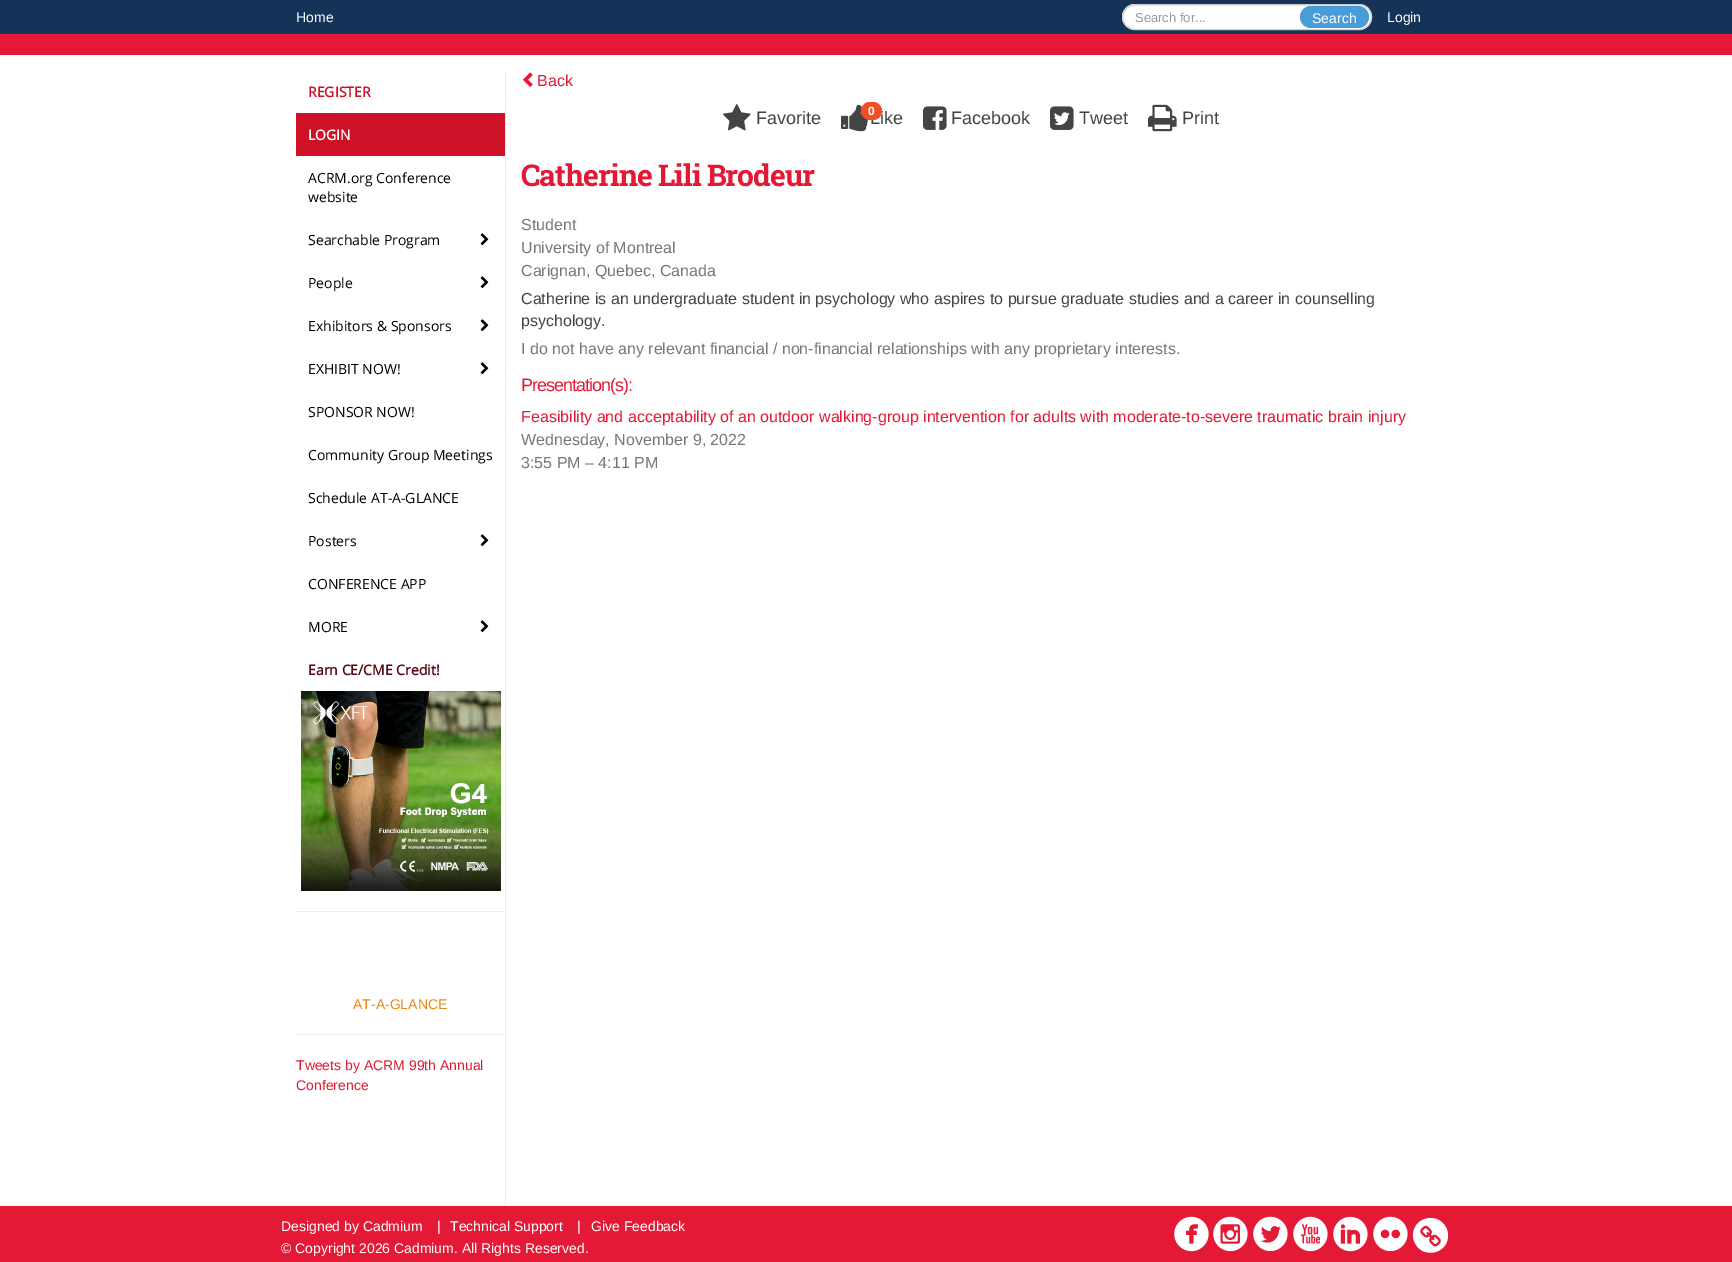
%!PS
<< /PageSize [1732 1262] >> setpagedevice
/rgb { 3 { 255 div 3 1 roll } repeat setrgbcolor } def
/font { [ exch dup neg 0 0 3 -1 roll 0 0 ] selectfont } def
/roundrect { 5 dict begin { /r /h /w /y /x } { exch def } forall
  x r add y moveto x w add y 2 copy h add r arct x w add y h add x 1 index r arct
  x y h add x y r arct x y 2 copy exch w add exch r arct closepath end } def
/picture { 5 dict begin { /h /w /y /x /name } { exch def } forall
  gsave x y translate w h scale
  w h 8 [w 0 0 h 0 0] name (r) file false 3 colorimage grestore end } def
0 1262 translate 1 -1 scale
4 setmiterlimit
255 255 255 rgb
0 0 1732 1262 rectfill
21 51 89 rgb
0 0 1732 34 rectfill
255 255 255 rgb
1122 4 250 26 13 roundrect fill
236 236 236 rgb
1135 6 moveto 1359 6 lineto 1367 6 1371 12 1371 17 curveto 1371 11 1366 5 1359 5 curveto 1135 5 lineto 1128 5 1122 12 1123 19 curveto 1123 13 1128 6 1135 6 curveto closepath fill
204 204 204 rgb
1122.5 4.5 249 25 12.5 roundrect stroke
72 156 216 rgb
1300 6 69 22 11 roundrect fill
[
  [0 34 1732 21 227 25 54]
  [505 70 1 1136 238 238 238]
  [296 113 209 43 206 17 38]
] { aload pop rgb rectfill } forall
(img/1.rgb) 480 233 9 13 picture
(img/1.rgb) 480 276 9 13 picture
(img/1.rgb) 480 319 9 13 picture
(img/1.rgb) 480 362 9 13 picture
(img/1.rgb) 480 534 9 13 picture
(img/1.rgb) 480 620 9 13 picture
(img/2.rgb) 301 691 200 200 picture
238 238 238 rgb
296 911 209 1 rectfill
296 1034 209 1 rectfill
(img/3.rgb) 522 72 11 15 picture
(img/4.rgb) 723 104 28 27 picture
(img/5.rgb) 841 104 27 28 picture
(img/6.rgb) 923 106 24 24 picture
(img/7.rgb) 1050 106 24 24 picture
(img/8.rgb) 1148 104 29 28 picture
227 25 54 rgb
0 1206 1732 56 rectfill
(img/9.rgb) 1174 1216 35 36 picture
(img/10.rgb) 1213 1216 35 36 picture
(img/11.rgb) 1253 1216 35 36 picture
(img/12.rgb) 1293 1216 35 36 picture
(img/13.rgb) 1333 1216 35 36 picture
(img/14.rgb) 1373 1216 35 36 picture
255 255 255 rgb
1445.5 1226.5 moveto 1447.5 1229.5 1448 1233 1448 1236.5 curveto 1447 1253.5 1424 1259 1415.5 1244 curveto 1413.5 1241 1413 1238 1413 1234.5 curveto 1414 1217 1437 1212 1445.5 1226.5 curveto closepath fill
(img/15.rgb) 1420 1225 21 22 picture
/LiberationSans-Regular 14 font
296 22 moveto (Home) show
/LiberationSans-Regular 13 font
153 153 153 rgb
1135 22 moveto (Search for...) show
/LiberationSans-Regular 14 font
255 255 255 rgb
1312 23 moveto (Search) show
1387 22 moveto (Login) show
/OpenSans-Bold 14 font
206 17 39 rgb
308 97 moveto (REGISTER) show
255 255 255 rgb
308 140 moveto (LOGIN) show
/OpenSans-Regular 14 font
0 0 0 rgb
[
  [(ACRM.org Conference) 308 183]
  [(website) 308 202]
  [(Searchable Program) 308 245]
  [(People) 308 288]
  [(Exhibitors & Sponsors) 308 331]
  [(EXHIBIT NOW!) 308 374]
  [(SPONSOR NOW!) 308 417]
  [(Community Group Meetings) 308 460]
  [(Schedule AT-A-GLANCE) 308 503]
  [(Posters) 308 546]
  [(CONFERENCE APP) 308 589]
  [(MORE) 308 632]
] { aload pop moveto show } forall
/OpenSans-Bold 14 font
87 9 20 rgb
308 675 moveto (Earn CE/CME Credit!) show
/LiberationSans-Regular 14 font
235 135 15 rgb
353 1009 moveto (AT-A-GLANCE) show
227 25 54 rgb
296 1070 moveto (Tweets by ACRM 99th Annual) show
296 1090 moveto (Conference) show
/LiberationSans-Regular 16 font
537 86 moveto (Back) show
/LiberationSans-Regular 18 font
68 68 68 rgb
756 124 moveto (Favorite) show
870 124 moveto (Like) show
240 78 35 rgb
861 102 21 18 9 roundrect fill
/LiberationSans-Bold 12 font
255 255 255 rgb
868 115 moveto (0) show
/LiberationSans-Regular 18 font
68 68 68 rgb
[
  [(Facebook) 951 124]
  [(Tweet) 1079 124]
  [(Print) 1182 124]
] { aload pop moveto show } forall
/RobotoSlab-Bold 30 font
227 25 54 rgb
521 186 moveto -1 0 (Catherine Lili Brodeur) ashow
/LiberationSans-Regular 16 font
119 119 119 rgb
[
  [(Student) 521 230]
  [(University of Montreal) 521 253]
  [(Carignan, Quebec, Canada) 521 276]
] { aload pop moveto show } forall
68 68 68 rgb
521 304 moveto (Catherine is an undergraduate student in psychology who aspires to pursue graduate studies and a career in counselling) show
521 326 moveto (psychology.) show
119 119 119 rgb
521 354 moveto (I do not have any relevant financial / non-financial relationships with any proprietary interests.) show
/LiberationSans-Regular 18 font
227 25 54 rgb
521 391 moveto -1 0 (Presentation\(s\):) ashow
/LiberationSans-Regular 16 font
521 422 moveto (Feasibility and acceptability of an outdoor walking-group intervention for adults with moderate-to-severe traumatic brain injury) show
119 119 119 rgb
521 445 moveto (Wednesday, November 9, 2022) show
521 468 moveto (3:55 PM – 4:11 PM) show
/LiberationSans-Regular 14 font
255 255 255 rgb
[
  [(Designed by Cadmium) 281 1231]
  [(|) 437 1231]
  [(Technical Support) 450 1231]
  [(|) 577 1231]
  [(Give Feedback) 591 1231]
  [(© Copyright 2026 Cadmium. All Rights Reserved.) 281 1253]
] { aload pop moveto show } forall
showpage
